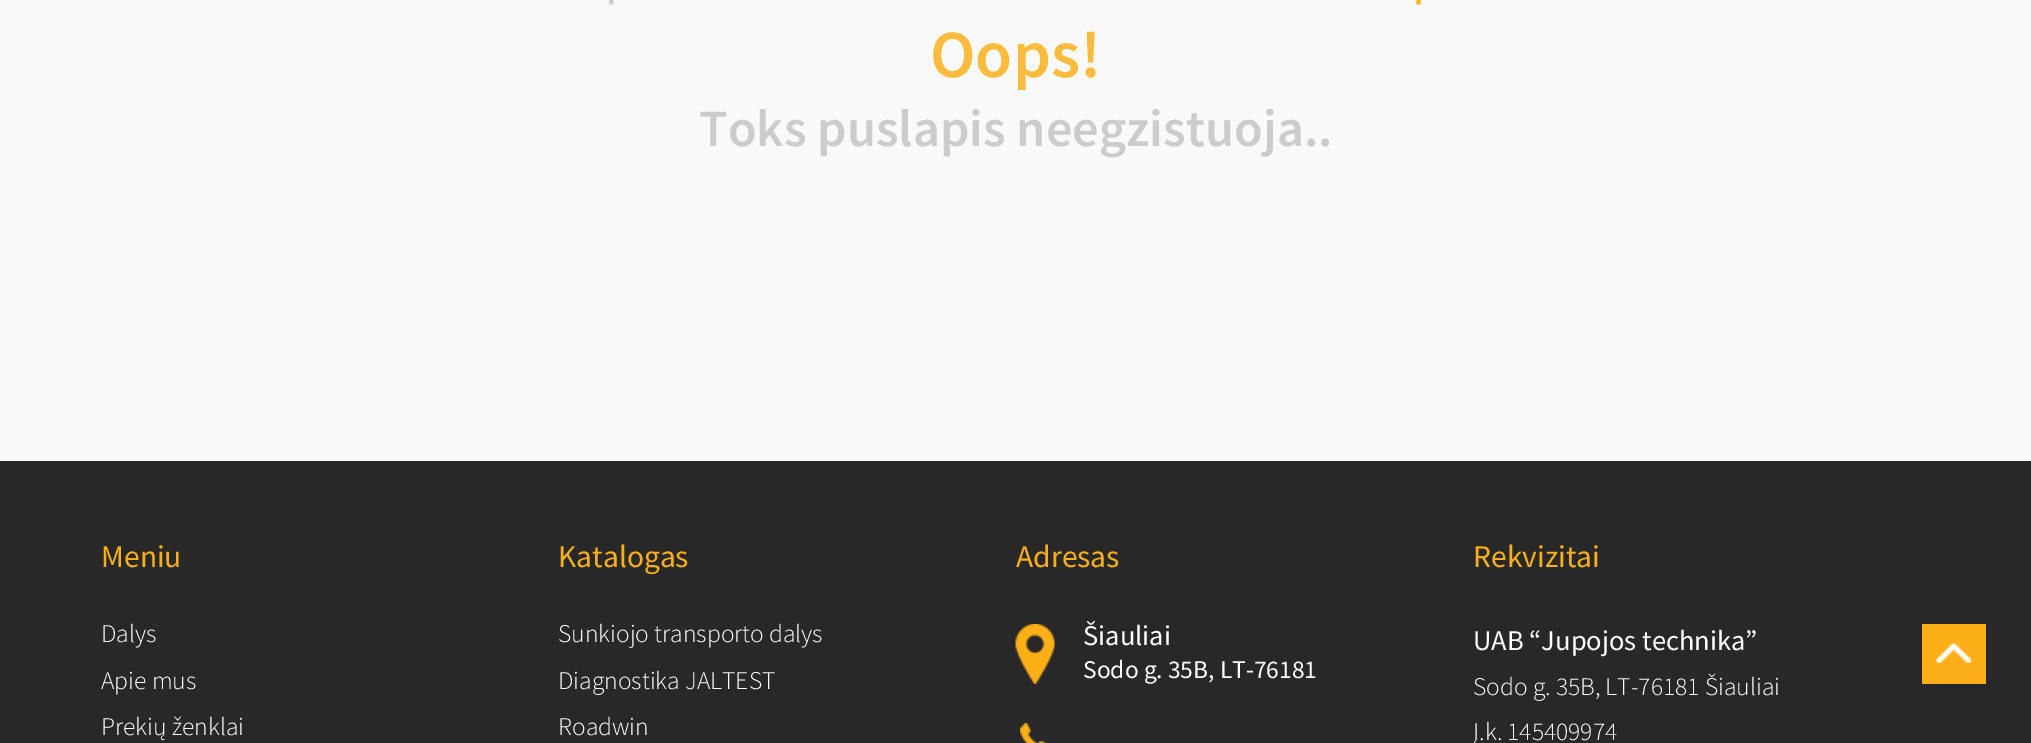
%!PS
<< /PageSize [2031 743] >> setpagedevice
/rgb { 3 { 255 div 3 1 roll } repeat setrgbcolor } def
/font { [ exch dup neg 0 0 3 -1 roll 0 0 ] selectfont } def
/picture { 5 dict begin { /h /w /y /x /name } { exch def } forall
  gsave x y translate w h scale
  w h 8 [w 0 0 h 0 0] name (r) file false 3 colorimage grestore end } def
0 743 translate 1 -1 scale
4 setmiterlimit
249 249 249 rgb
0 0 2031 743 rectfill
(img/1.rgb) 609 0 813 5 picture
40 40 40 rgb
0 461 2031 282 rectfill
(img/2.rgb) 1015 624 40 60 picture
(img/3.rgb) 1020 723 27 20 picture
252 175 23 rgb
1922 624 64 60 rectfill
(img/4.rgb) 1936 643 35 20 picture
/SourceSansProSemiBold-SemiBold 67.5 font
251 188 62 rgb
930 77 moveto (Oops!) show
/SourceSansProSemiBold-SemiBold 52.5 font
204 204 204 rgb
699 146 moveto (Toks puslapis neegzistuoja..) show
/SourceSansPro-Regular 31.5 font
252 175 23 rgb
101 567 moveto (Meniu) show
/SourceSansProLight-Light 25.5 font
255 255 255 rgb
[
  [(Dalys) 101 642]
  [(Apie mus) 101 689]
  [(Prekių ženklai) 101 735]
] { aload pop moveto show } forall
/SourceSansPro-Regular 31.5 font
252 175 23 rgb
558 567 moveto (Katalogas) show
/SourceSansProLight-Light 25.5 font
255 255 255 rgb
[
  [(Sunkiojo transporto dalys) 558 642]
  [(Diagnostika JALTEST) 558 689]
  [(Roadwin) 558 735]
] { aload pop moveto show } forall
/SourceSansPro-Regular 31.5 font
252 175 23 rgb
1016 567 moveto (Adresas) show
/SourceSansPro-Regular 28.5 font
255 255 255 rgb
1083 645 moveto (Šiauliai) show
/SourceSansPro-Regular 25.5 font
1083 678 moveto (Sodo g. 35B, LT-76181) show
/SourceSansPro-Regular 31.5 font
252 175 23 rgb
1473 567 moveto (Rekvizitai) show
/SourceSansPro-Regular 28.5 font
255 255 255 rgb
1473 650 moveto (UAB “Jupojos technika”) show
/SourceSansProLight-Light 25.5 font
1473 695 moveto (Sodo g. 35B, LT-76181 Šiauliai) show
1473 740 moveto (Į.k. 145409974) show
showpage
